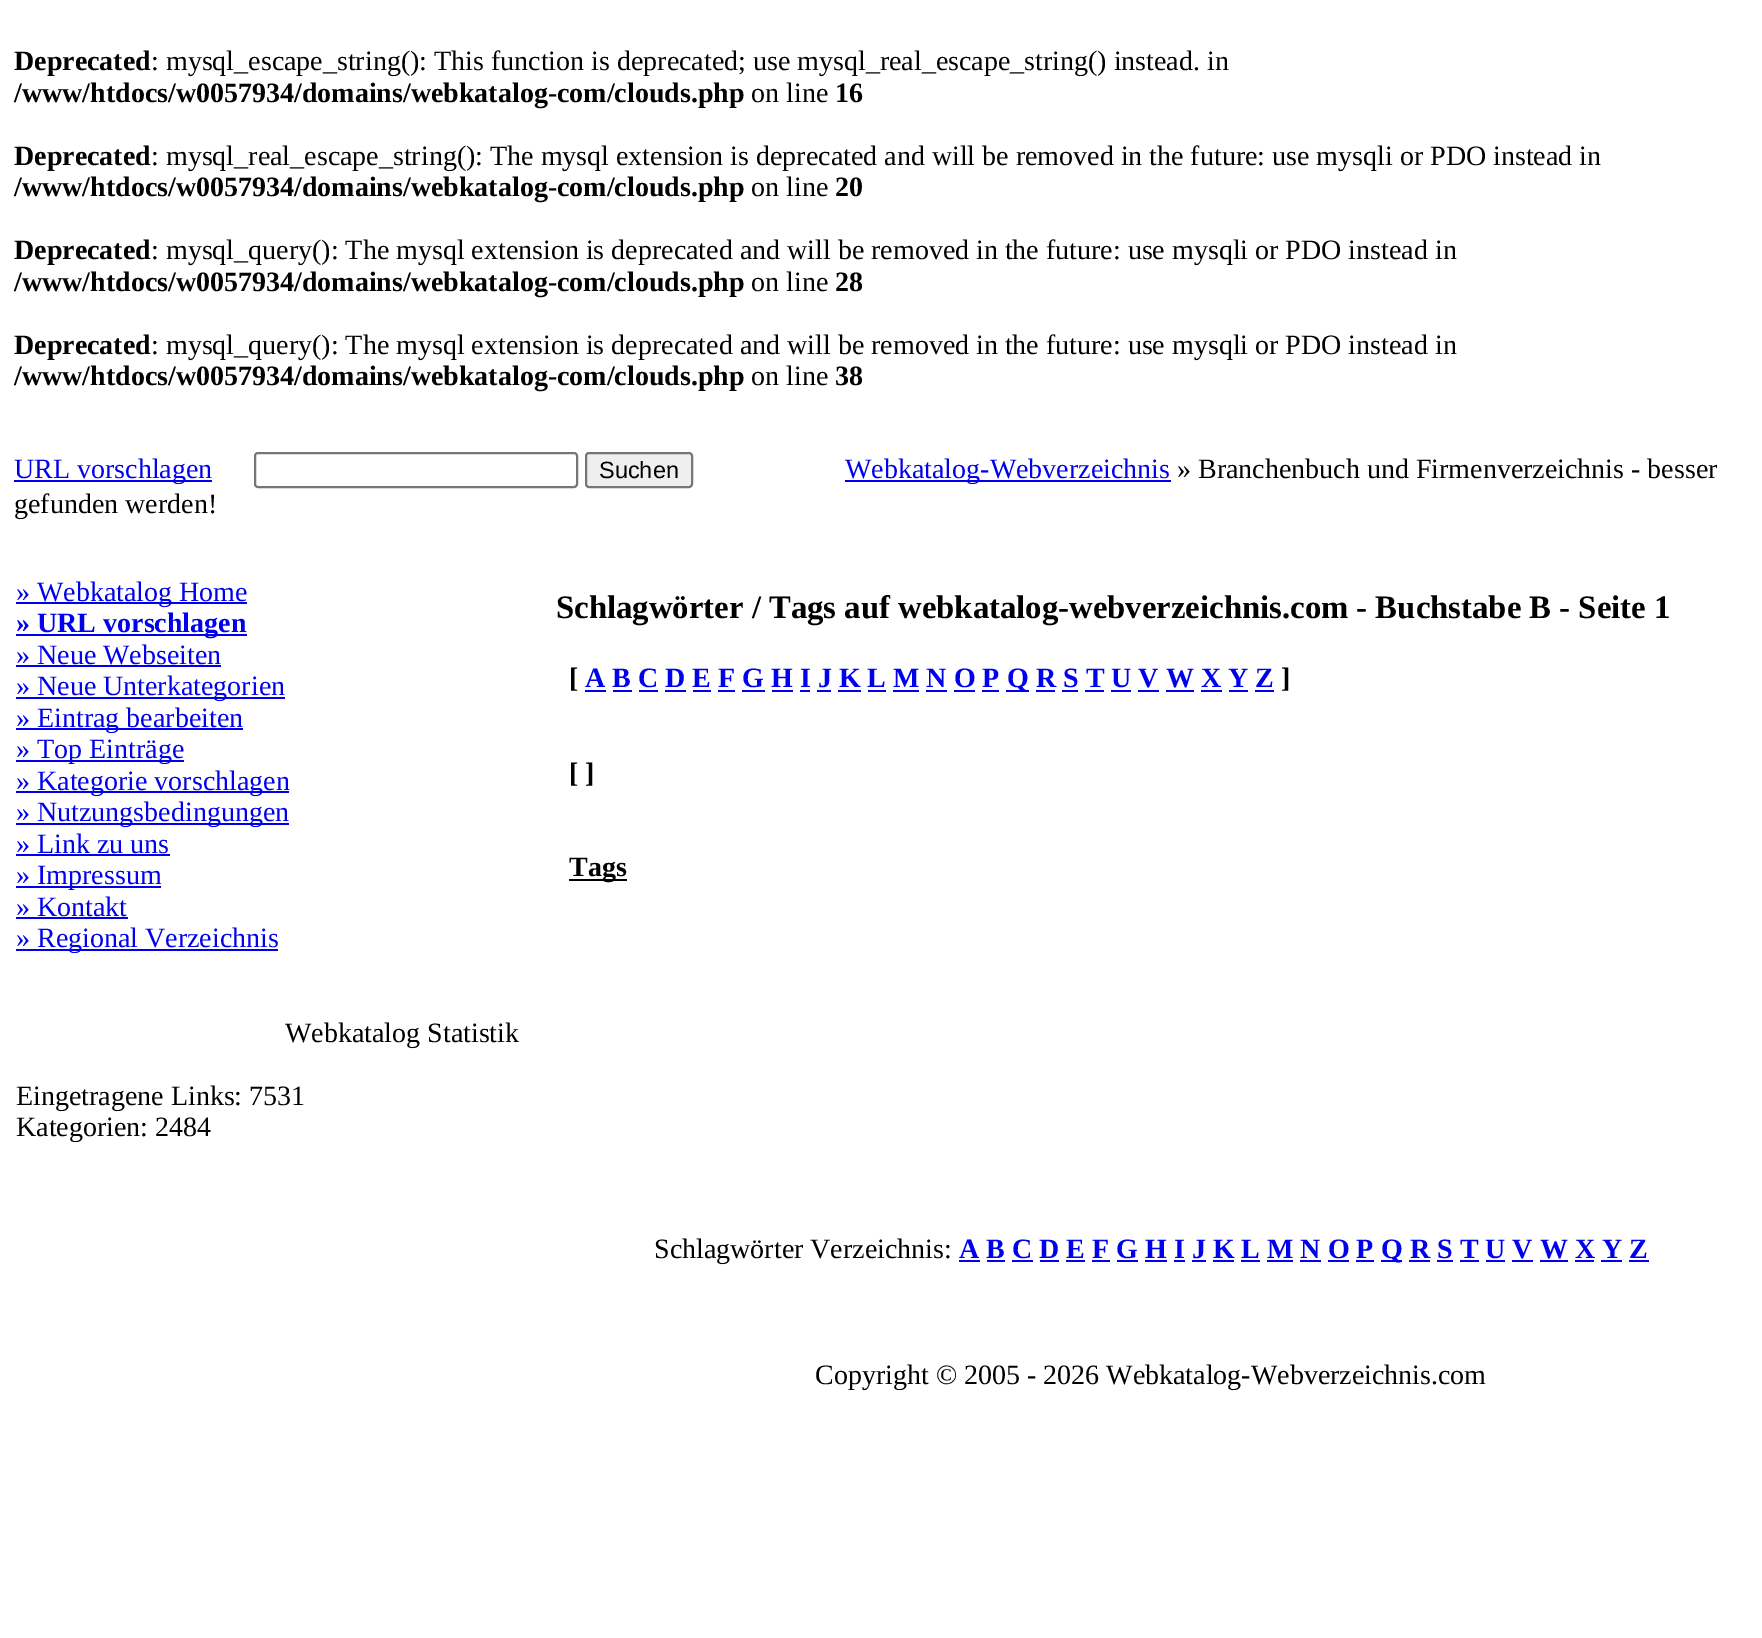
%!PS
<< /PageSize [1762 1638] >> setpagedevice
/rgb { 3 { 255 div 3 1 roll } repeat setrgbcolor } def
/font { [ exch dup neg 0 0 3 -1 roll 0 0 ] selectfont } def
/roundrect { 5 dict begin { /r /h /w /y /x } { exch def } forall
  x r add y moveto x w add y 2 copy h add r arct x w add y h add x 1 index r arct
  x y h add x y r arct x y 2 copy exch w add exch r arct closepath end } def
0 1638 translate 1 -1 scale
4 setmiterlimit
255 255 255 rgb
0 0 1762 1638 rectfill
0 0 238 rgb
14 480 198 2 rectfill
118 118 118 rgb
2 setlinewidth
255 453 322 34 3 roundrect stroke
239 239 239 rgb
586 453 106 34 3 roundrect gsave fill grestore
118 118 118 rgb
stroke
[
  [845 480 326 2 0 0 238]
  [16 602 231 2 0 0 238]
  [16 634 231 2 0 0 238]
  [16 665 205 2 0 0 238]
  [16 697 269 2 0 0 238]
  [16 728 227 2 0 0 238]
  [16 760 168 2 0 0 238]
  [16 791 273 2 0 0 238]
  [16 823 273 2 0 0 238]
  [16 854 154 2 0 0 238]
  [16 886 145 2 0 0 238]
  [16 917 112 2 0 0 238]
  [16 949 262 2 0 0 238]
  [585 690 21 2 0 0 238]
  [613 690 19 2 0 0 238]
  [639 690 19 2 0 0 238]
  [665 690 21 2 0 0 238]
  [693 690 18 2 0 0 238]
  [718 690 17 2 0 0 238]
  [742 690 23 2 0 0 238]
  [772 690 21 2 0 0 238]
  [800 690 10 2 0 0 238]
  [817 690 14 2 0 0 238]
  [838 690 23 2 0 0 238]
  [868 690 18 2 0 0 238]
  [893 690 26 2 0 0 238]
  [926 690 21 2 0 0 238]
  [954 690 21 2 0 0 238]
  [982 690 17 2 0 0 238]
  [1006 690 23 2 0 0 238]
  [1036 690 19 2 0 0 238]
  [1062 690 16 2 0 0 238]
  [1085 690 19 2 0 0 238]
  [1111 690 20 2 0 0 238]
  [1138 690 21 2 0 0 238]
  [1166 690 28 2 0 0 238]
  [1201 690 21 2 0 0 238]
  [1229 690 19 2 0 0 238]
  [1255 690 19 2 0 0 238]
  [569 879 58 2 0 0 0]
  [959 1260 21 2 0 0 238]
  [987 1260 18 2 0 0 238]
  [1012 1260 21 2 0 0 238]
  [1040 1260 19 2 0 0 238]
  [1066 1260 19 2 0 0 238]
  [1092 1260 18 2 0 0 238]
  [1117 1260 21 2 0 0 238]
  [1145 1260 22 2 0 0 238]
  [1174 1260 11 2 0 0 238]
  [1192 1260 14 2 0 0 238]
  [1213 1260 21 2 0 0 238]
  [1241 1260 19 2 0 0 238]
  [1267 1260 26 2 0 0 238]
  [1300 1260 21 2 0 0 238]
  [1328 1260 21 2 0 0 238]
  [1356 1260 18 2 0 0 238]
  [1381 1260 21 2 0 0 238]
  [1409 1260 21 2 0 0 238]
  [1437 1260 16 2 0 0 238]
  [1460 1260 19 2 0 0 238]
  [1486 1260 19 2 0 0 238]
  [1512 1260 21 2 0 0 238]
  [1540 1260 28 2 0 0 238]
  [1575 1260 19 2 0 0 238]
  [1601 1260 21 2 0 0 238]
  [1629 1260 20 2 0 0 238]
] { aload pop rgb rectfill } forall
/LiberationSerif-Bold 28 font
0 0 0 rgb
14 70 moveto (Deprecated) show
/LiberationSerif-Regular 28 font
151 70 moveto (: mysql_escape_string\(\): This function is deprecated; use mysql_real_escape_string\(\) instead. in) show
/LiberationSerif-Bold 28 font
14 102 moveto (/www/htdocs/w0057934/domains/webkatalog-com/clouds.php) show
/LiberationSerif-Regular 28 font
751 102 moveto (on line) show
/LiberationSerif-Bold 28 font
835 102 moveto (16) show
14 165 moveto (Deprecated) show
/LiberationSerif-Regular 28 font
151 165 moveto (: mysql_real_escape_string\(\): The mysql extension is deprecated and will be removed in the future: use mysqli or PDO instead in) show
/LiberationSerif-Bold 28 font
14 196 moveto (/www/htdocs/w0057934/domains/webkatalog-com/clouds.php) show
/LiberationSerif-Regular 28 font
751 196 moveto (on line) show
/LiberationSerif-Bold 28 font
835 196 moveto (20) show
14 259 moveto (Deprecated) show
/LiberationSerif-Regular 28 font
151 259 moveto (: mysql_query\(\): The mysql extension is deprecated and will be removed in the future: use mysqli or PDO instead in) show
/LiberationSerif-Bold 28 font
14 291 moveto (/www/htdocs/w0057934/domains/webkatalog-com/clouds.php) show
/LiberationSerif-Regular 28 font
751 291 moveto (on line) show
/LiberationSerif-Bold 28 font
835 291 moveto (28) show
14 354 moveto (Deprecated) show
/LiberationSerif-Regular 28 font
151 354 moveto (: mysql_query\(\): The mysql extension is deprecated and will be removed in the future: use mysqli or PDO instead in) show
/LiberationSerif-Bold 28 font
14 385 moveto (/www/htdocs/w0057934/domains/webkatalog-com/clouds.php) show
/LiberationSerif-Regular 28 font
751 385 moveto (on line) show
/LiberationSerif-Bold 28 font
835 385 moveto (38) show
/LiberationSerif-Regular 28 font
0 0 238 rgb
14 478 moveto (URL vorschlagen) show
/LiberationSans-Regular 23.5 font
0 0 0 rgb
599 478 moveto (Suchen) show
/LiberationSerif-Regular 28 font
0 0 238 rgb
845 478 moveto (Webkatalog-Webverzeichnis) show
0 0 0 rgb
1177 478 moveto (» Branchenbuch und Firmenverzeichnis - besser) show
14 513 moveto (gefunden werden!) show
0 0 238 rgb
16 601 moveto (» Webkatalog Home) show
/LiberationSerif-Bold 28 font
16 632 moveto (» URL vorschlagen) show
/LiberationSerif-Regular 28 font
[
  [(» Neue Webseiten) 16 664]
  [(» Neue Unterkategorien) 16 695]
  [(» Eintrag bearbeiten) 16 727]
  [(» Top Einträge) 16 758]
  [(» Kategorie vorschlagen) 16 790]
  [(» Nutzungsbedingungen) 16 821]
  [(» Link zu uns) 16 853]
  [(» Impressum) 16 884]
  [(» Kontakt) 16 916]
  [(» Regional Verzeichnis) 16 947]
] { aload pop moveto show } forall
0 0 0 rgb
[
  [(Webkatalog Statistik) 285 1042]
  [(Eingetragene Links: 7531) 16 1105]
  [(Kategorien: 2484) 16 1136]
] { aload pop moveto show } forall
/LiberationSerif-Bold 32.75 font
556 618 moveto (Schlagwörter / Tags auf webkatalog-webverzeichnis.com - Buchstabe B - Seite 1) show
/LiberationSerif-Bold 28 font
569 687 moveto ([) show
0 0 238 rgb
585 687 moveto (A B C D E F G H I J K L M N O P) show
1007 687 moveto (Q R S T U V W X Y Z) show
0 0 0 rgb
[
  [(]) 1281 687]
  [([ ]) 569 782]
  [(Tags) 569 876]
] { aload pop moveto show } forall
/LiberationSerif-Regular 28 font
654 1258 moveto (Schlagwörter Verzeichnis:) show
/LiberationSerif-Bold 28 font
0 0 238 rgb
959 1258 moveto (A B C D E F G H I J K L M N O P) show
1381 1258 moveto (Q R S T U V W X Y Z) show
/LiberationSerif-Regular 28 font
0 0 0 rgb
815 1384 moveto (Copyright © 2005 - 2026 Webkatalog-Webverzeichnis.com) show
showpage
